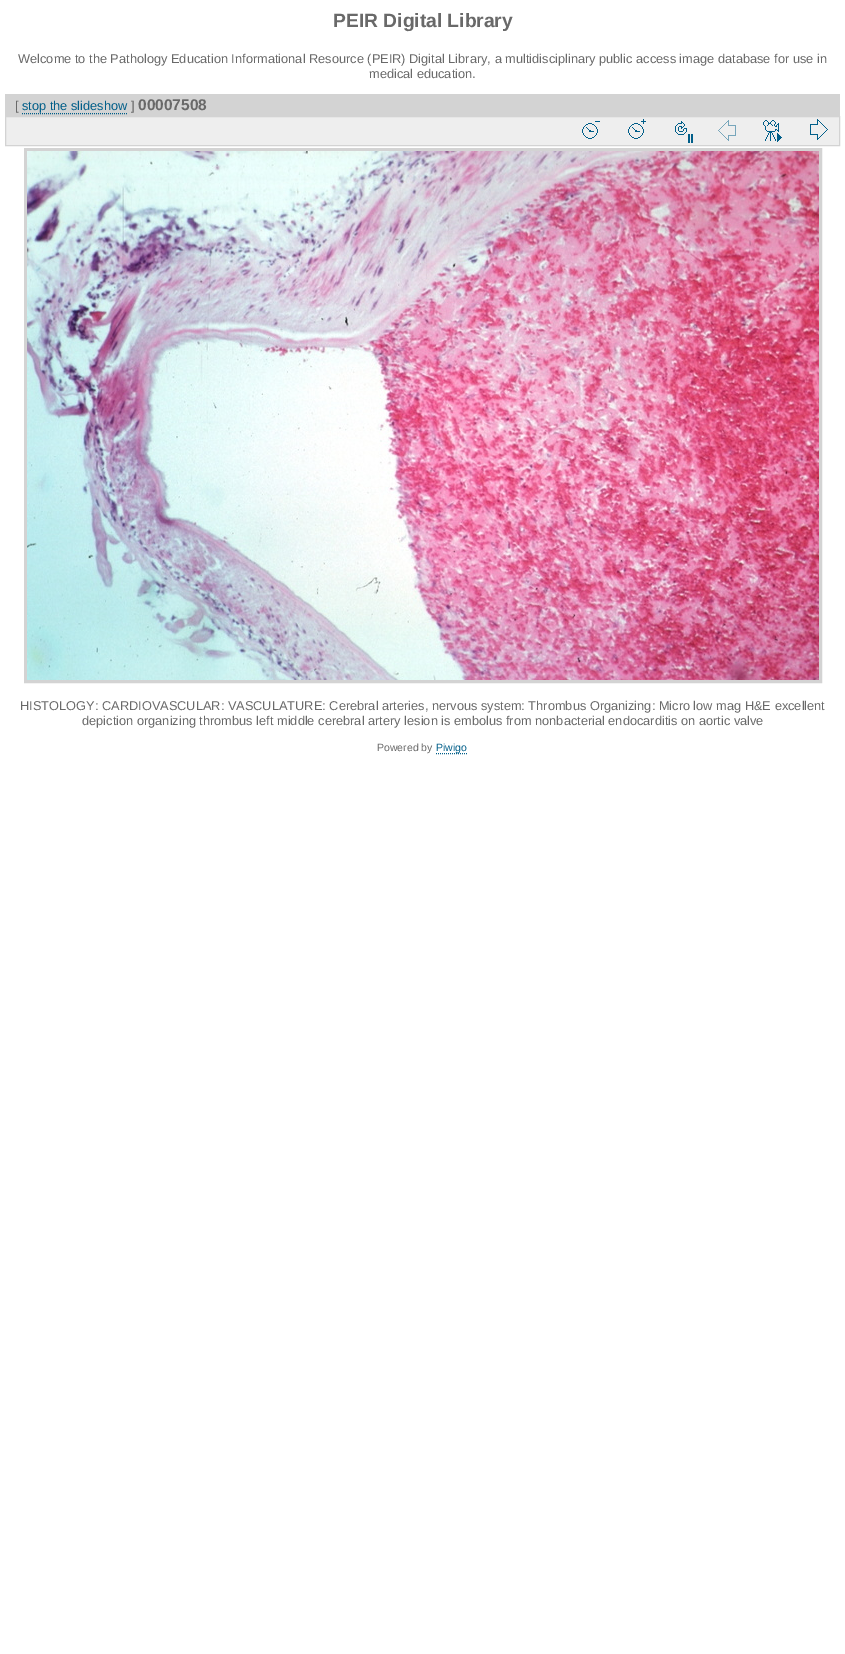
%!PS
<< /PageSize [845 1654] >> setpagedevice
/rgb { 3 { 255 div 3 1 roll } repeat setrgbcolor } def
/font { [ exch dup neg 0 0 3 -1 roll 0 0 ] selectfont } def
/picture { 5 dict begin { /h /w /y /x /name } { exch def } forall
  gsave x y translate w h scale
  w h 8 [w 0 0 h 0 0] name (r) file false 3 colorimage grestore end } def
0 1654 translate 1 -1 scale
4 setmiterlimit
255 255 255 rgb
0 0 845 1654 rectfill
211 211 211 rgb
5 94 835 22 rectfill
0 94 137 rgb
[1 1] 0 setdash
22 113.5 moveto 127 113.5 lineto stroke
238 238 238 rgb
5.5 116.5 moveto 839.5 116.5 lineto 839.5 145.5 lineto 5.5 145.5 lineto closepath gsave fill grestore
211 211 211 rgb
[] 0 setdash
stroke
(img/1.rgb) 582 121 18 18 picture
(img/2.rgb) 628 119 18 20 picture
(img/3.rgb) 675 121 18 22 picture
(img/4.rgb) 718 120 18 21 picture
(img/5.rgb) 763 120 19 22 picture
(img/6.rgb) 810 119 18 21 picture
3 setlinewidth
25.5 149.5 795 532 rectstroke
(img/7.rgb) 27 151 792 529 picture
0 94 137 rgb
1 setlinewidth
[1 1] 0 setdash
436 753.5 moveto 468 753.5 lineto stroke
/LiberationSans-Bold 19.25 font
105 105 105 rgb
333 27 moveto (PEIR Digital Library) show
/LiberationSans-Regular 12.8 font
[
  [(Welcome to the Pathology Education Informational Resource \(PEIR\) Digital Library, a multidisciplinary public access image database for use in) 18 63]
  [(medical education.) 369 78]
  [([) 15 110]
] { aload pop moveto show } forall
0 94 137 rgb
22 110 moveto (stop the slideshow) show
105 105 105 rgb
131 110 moveto (]) show
/LiberationSans-Bold 15.5 font
138 110 moveto (00007508) show
/LiberationSans-Regular 12.8 font
20 710 moveto (HISTOLOGY: CARDIOVASCULAR: VASCULATURE: Cerebral arteries, nervous system: Thrombus Organizing: Micro low mag H&E excellent) show
82 725 moveto (depiction organizing thrombus left middle cerebral artery lesion is embolus from nonbacterial endocarditis on aortic valve) show
/LiberationSans-Regular 10.5 font
377 751 moveto (Powered by) show
0 94 137 rgb
436 751 moveto (Piwigo) show
showpage
